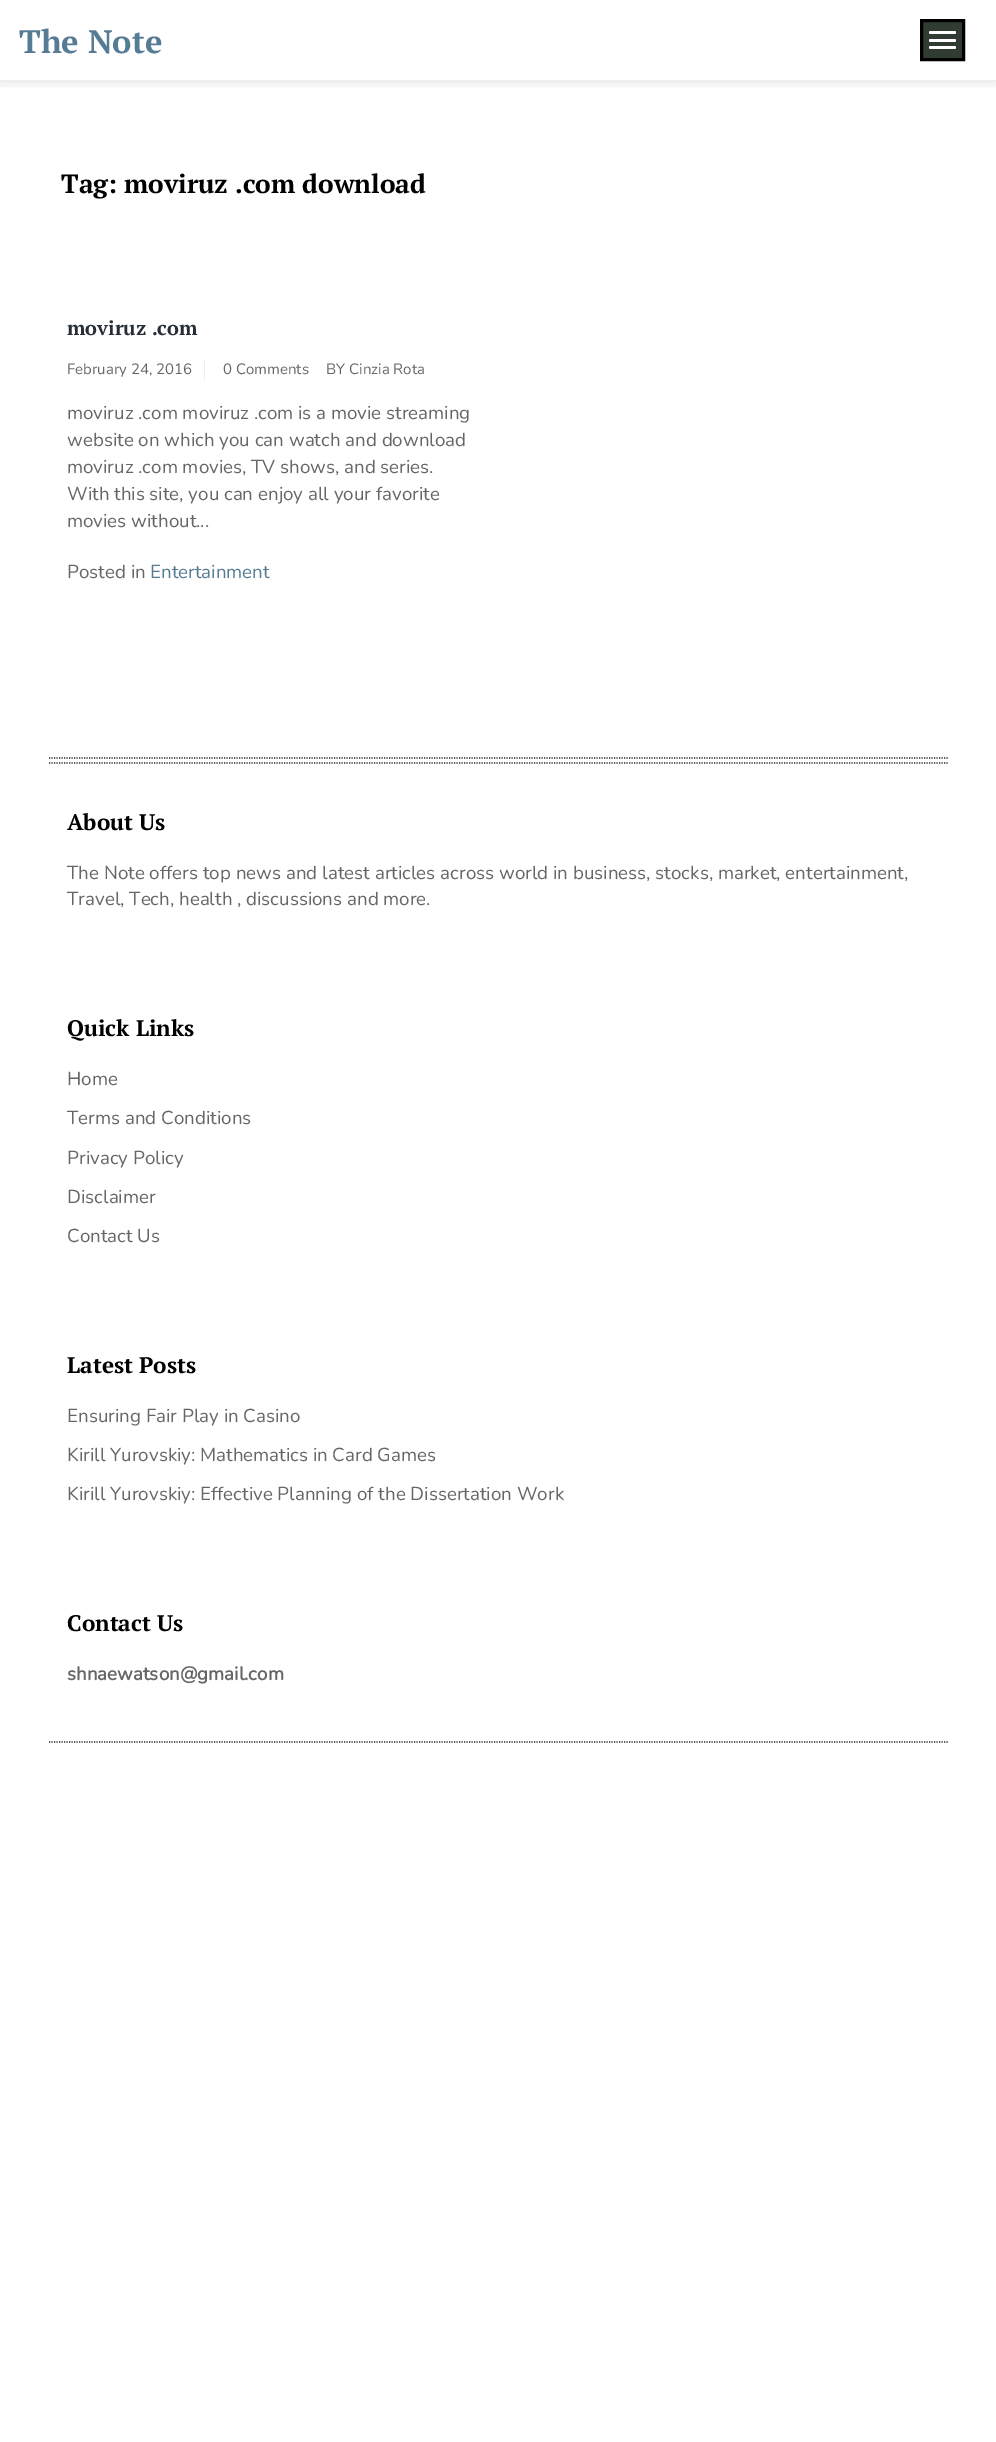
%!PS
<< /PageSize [996 2442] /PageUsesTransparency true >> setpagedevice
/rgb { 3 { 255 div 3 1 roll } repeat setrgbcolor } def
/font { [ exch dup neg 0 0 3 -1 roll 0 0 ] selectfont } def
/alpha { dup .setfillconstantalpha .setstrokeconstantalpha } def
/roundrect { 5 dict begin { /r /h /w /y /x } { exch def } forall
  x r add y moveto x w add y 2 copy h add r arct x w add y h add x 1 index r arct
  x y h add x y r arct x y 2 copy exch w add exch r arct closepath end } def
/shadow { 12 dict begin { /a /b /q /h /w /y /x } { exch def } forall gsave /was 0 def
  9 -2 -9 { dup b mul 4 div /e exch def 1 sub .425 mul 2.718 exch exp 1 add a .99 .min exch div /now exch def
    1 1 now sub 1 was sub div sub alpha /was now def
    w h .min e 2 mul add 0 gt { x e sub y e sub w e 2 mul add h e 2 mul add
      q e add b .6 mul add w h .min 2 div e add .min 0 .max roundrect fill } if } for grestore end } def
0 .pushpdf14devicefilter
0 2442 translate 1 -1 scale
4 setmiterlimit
255 255 255 rgb
0 0 996 2442 rectfill
gsave
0 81 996 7 rectclip
0 0 0 rgb
0 0 996 81 0 7.5 0.12 shadow
grestore
238 238 238 rgb
0 80 996 1 rectfill
48 59 50 rgb
921.5 20.5 moveto 963.5 20.5 lineto 963.5 59.5 lineto 921.5 59.5 lineto closepath gsave fill grestore
0 0 0 rgb
3 setlinewidth
stroke
255 255 255 rgb
929 31 27 3 1.5 roundrect fill
929 39 27 3 1.5 roundrect fill
929 46 27 3 1.5 roundrect fill
238 238 238 rgb
204 359 1 21 rectfill
34 34 34 rgb
1.2 setlinewidth
[1.25 1.25] 0 setdash
49 1742 moveto 949 1742 lineto stroke
49 758 moveto 949 758 lineto stroke
49 763 moveto 949 763 lineto stroke
/PTSerif-Bold 32.5 font
86 123 149 rgb
19 53 moveto (The Note) show
/PTSerif-Bold 26.25 font
0 0 0 rgb
61 193 moveto (Tag: moviruz .com download) show
/PTSerif-Bold 20 font
39 46 55 rgb
67 335 moveto (moviruz .com) show
/Nunito-Regular 15 font
102 102 102 rgb
[
  [(February 24, 2016) 67 374]
  [(0 Comments) 223 374]
  [(BY) 326 374]
  [(Cinzia Rota) 349 374]
] { aload pop moveto show } forall
/Nunito-Regular 18.75 font
[
  [(moviruz .com moviruz .com is a movie streaming) 67 419]
  [(website on which you can watch and download) 67 446]
  [(moviruz .com movies, TV shows, and series.) 67 473]
  [(With this site, you can enjoy all your favorite) 67 500]
  [(movies without...) 67 527]
  [(Posted in) 67 578]
] { aload pop moveto show } forall
86 123 149 rgb
150 578 moveto (Entertainment) show
/PTSerif-Bold 22.5 font
0 0 0 rgb
67 830 moveto (About Us) show
/Nunito-Regular 18.75 font
102 102 102 rgb
67 879 moveto (The Note offers top news and latest articles across world in business, stocks, market, entertainment,) show
67 905 moveto (Travel, Tech, health , discussions and more.) show
/PTSerif-Bold 22.5 font
0 0 0 rgb
67 1036 moveto (Quick Links) show
/Nunito-Regular 18.75 font
102 102 102 rgb
[
  [(Home) 67 1085]
  [(Terms and Conditions) 67 1124]
  [(Privacy Policy) 67 1164]
  [(Disclaimer) 67 1203]
  [(Contact Us) 67 1242]
] { aload pop moveto show } forall
/PTSerif-Bold 22.5 font
0 0 0 rgb
67 1373 moveto (Latest Posts) show
/Nunito-Regular 18.75 font
102 102 102 rgb
[
  [(Ensuring Fair Play in Casino) 67 1422]
  [(Kirill Yurovskiy: Mathematics in Card Games) 67 1461]
  [(Kirill Yurovskiy: Effective Planning of the Dissertation Work) 67 1500]
] { aload pop moveto show } forall
/PTSerif-Bold 22.5 font
0 0 0 rgb
67 1631 moveto (Contact Us) show
/Nunito-Bold 18.75 font
102 102 102 rgb
67 1680 moveto (shnaewatson@gmail.com) show
.poppdf14devicefilter showpage
